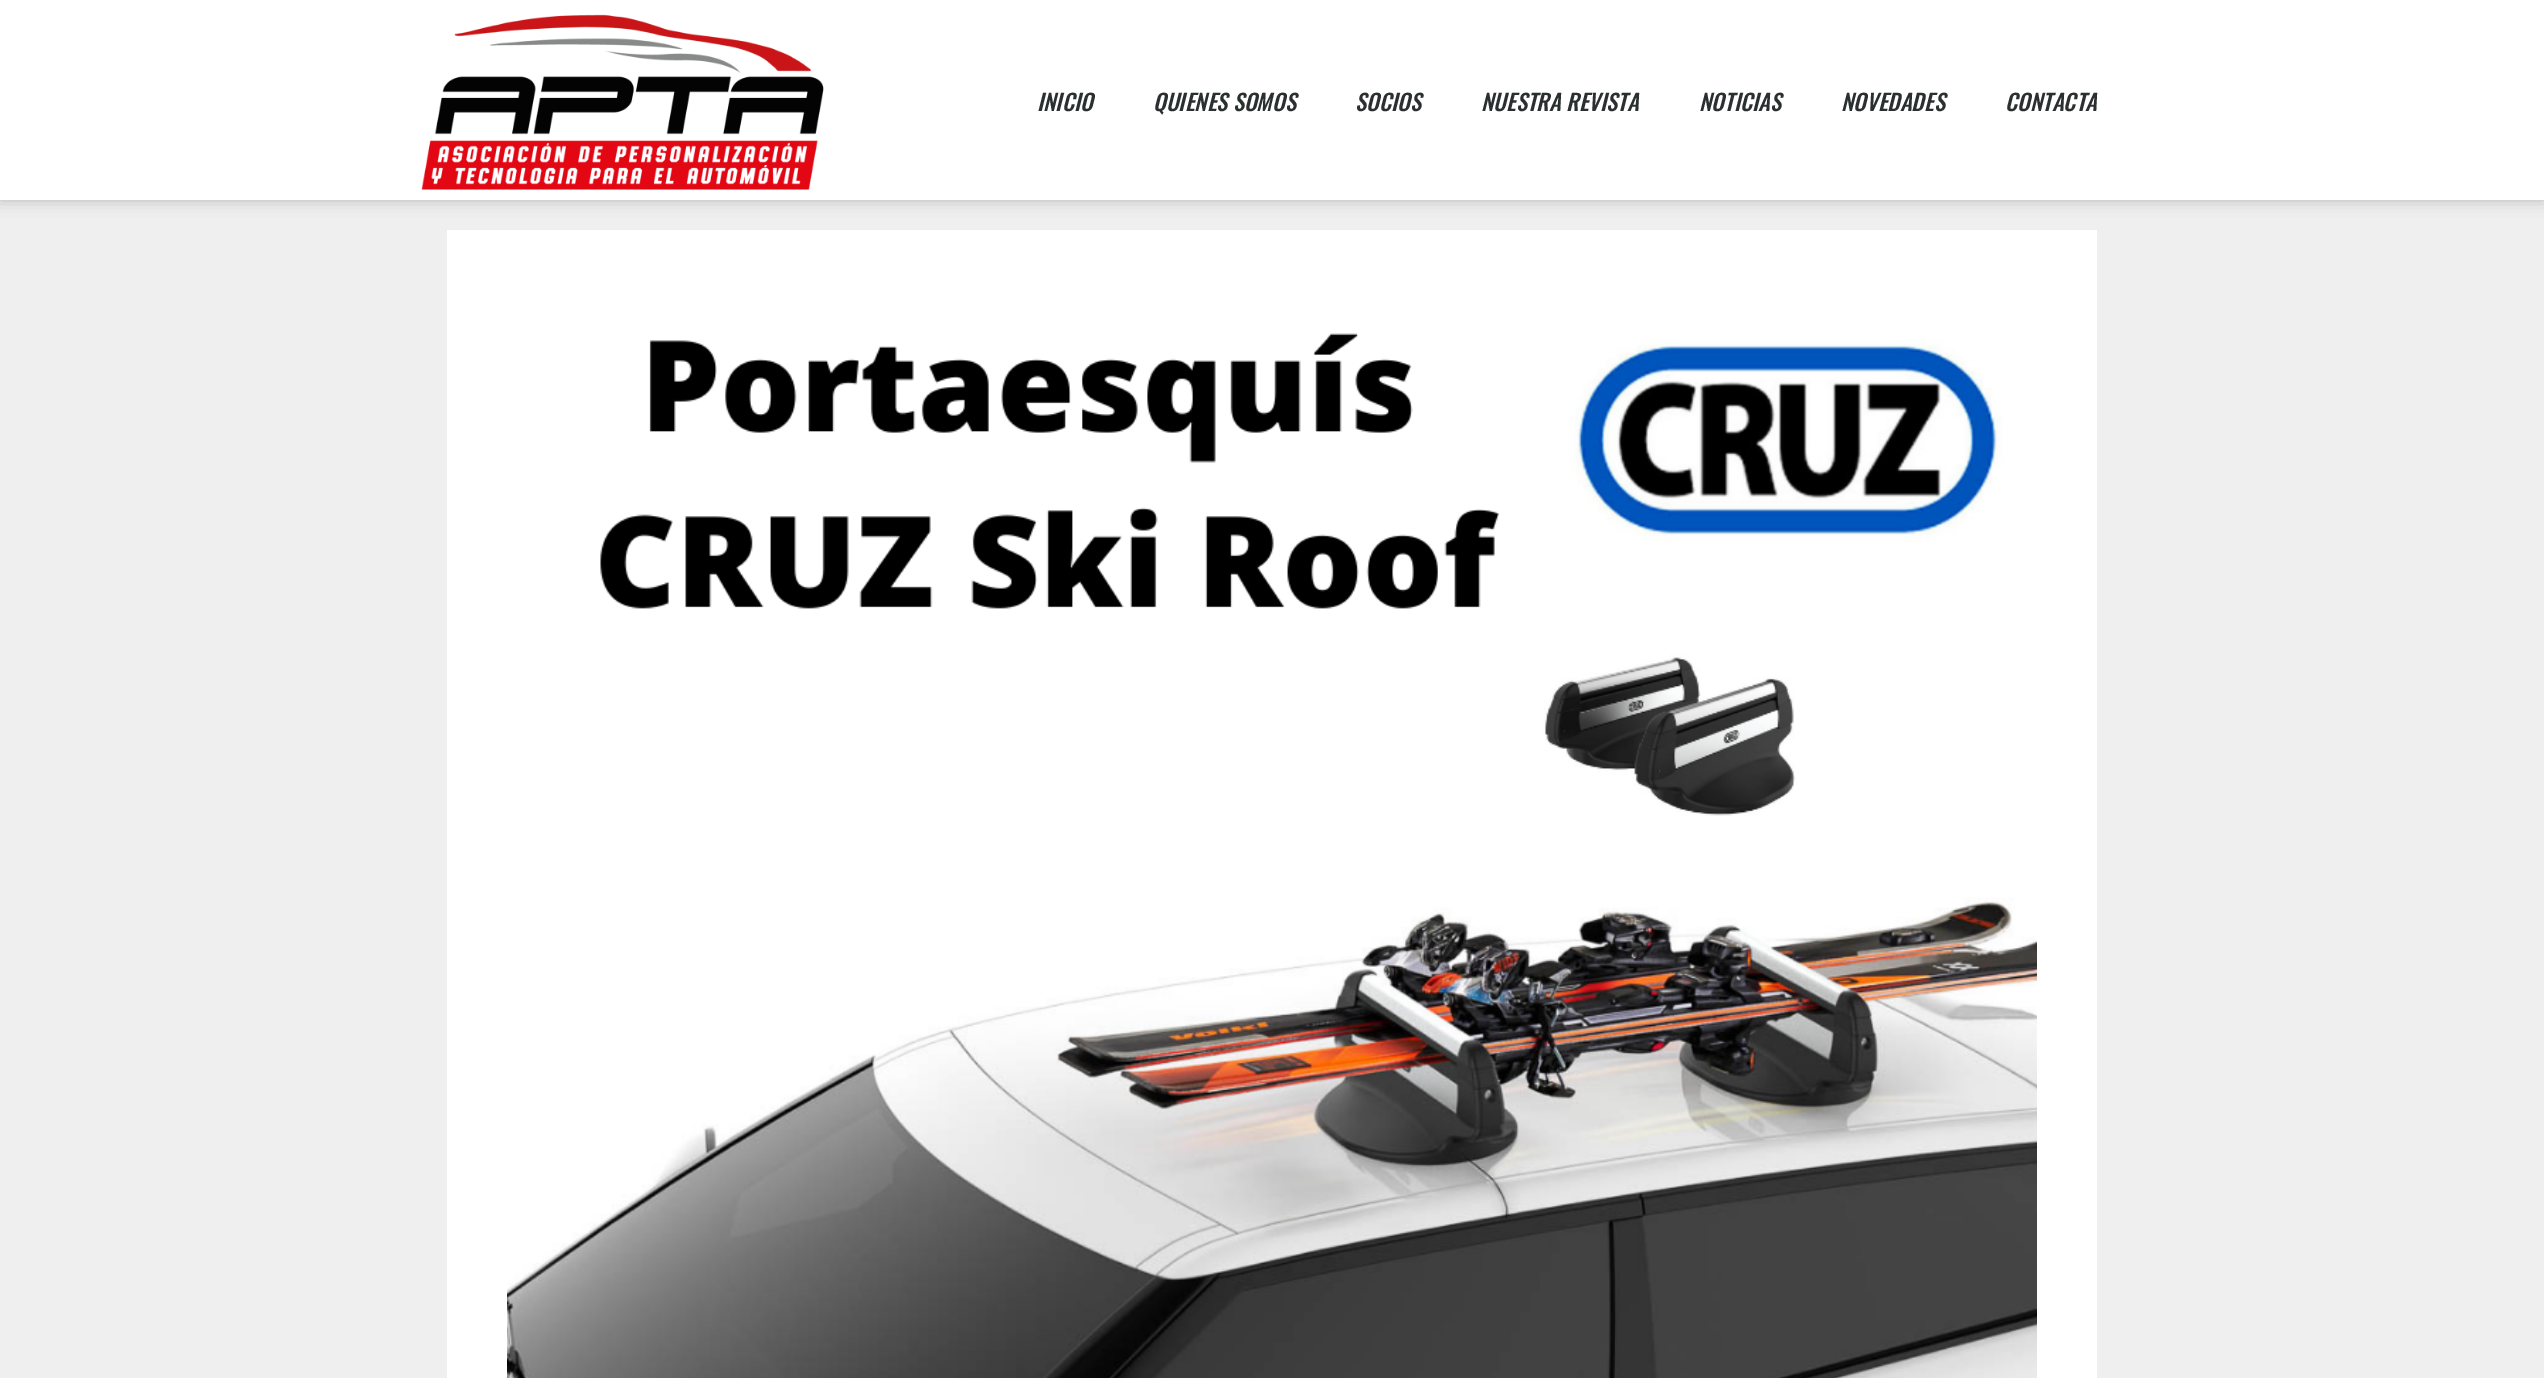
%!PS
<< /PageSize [2544 1378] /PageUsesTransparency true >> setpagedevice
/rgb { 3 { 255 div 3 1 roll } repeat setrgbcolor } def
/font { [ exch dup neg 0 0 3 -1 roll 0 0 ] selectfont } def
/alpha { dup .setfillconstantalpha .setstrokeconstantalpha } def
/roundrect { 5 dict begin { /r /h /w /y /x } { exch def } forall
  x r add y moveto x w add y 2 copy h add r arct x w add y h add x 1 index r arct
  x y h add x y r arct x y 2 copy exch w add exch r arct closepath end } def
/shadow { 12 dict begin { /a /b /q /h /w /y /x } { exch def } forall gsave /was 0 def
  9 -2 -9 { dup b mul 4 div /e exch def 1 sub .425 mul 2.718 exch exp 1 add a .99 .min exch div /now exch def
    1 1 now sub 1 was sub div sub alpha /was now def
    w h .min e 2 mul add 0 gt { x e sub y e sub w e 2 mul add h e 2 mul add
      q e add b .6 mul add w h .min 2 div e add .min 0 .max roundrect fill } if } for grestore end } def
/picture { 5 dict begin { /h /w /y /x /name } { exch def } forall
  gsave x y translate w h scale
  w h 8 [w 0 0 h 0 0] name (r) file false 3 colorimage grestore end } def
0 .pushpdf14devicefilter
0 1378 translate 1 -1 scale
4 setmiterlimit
239 239 239 rgb
0 0 2544 1378 rectfill
0 0 0 rgb
0 2 2544 198 0 7.5 0.23 shadow
255 255 255 rgb
0 0 2544 200 rectfill
(img/1.rgb) 421 14 403 176 picture
447 230 1650 1148 rectfill
(img/2.rgb) 507 333 1530 1045 picture
/Oswald-MediumItalic 22.5 font
42 48 47 rgb
[
  [(INICIO) 1037 111]
  [(QUIENES SOMOS) 1153 111]
  [(SOCIOS) 1355 111]
  [(NUESTRA REVISTA) 1481 111]
  [(NOTICIAS) 1699 111]
  [(NOVEDADES) 1841 111]
  [(CONTACTA) 2005 111]
] { aload pop moveto show } forall
.poppdf14devicefilter showpage
